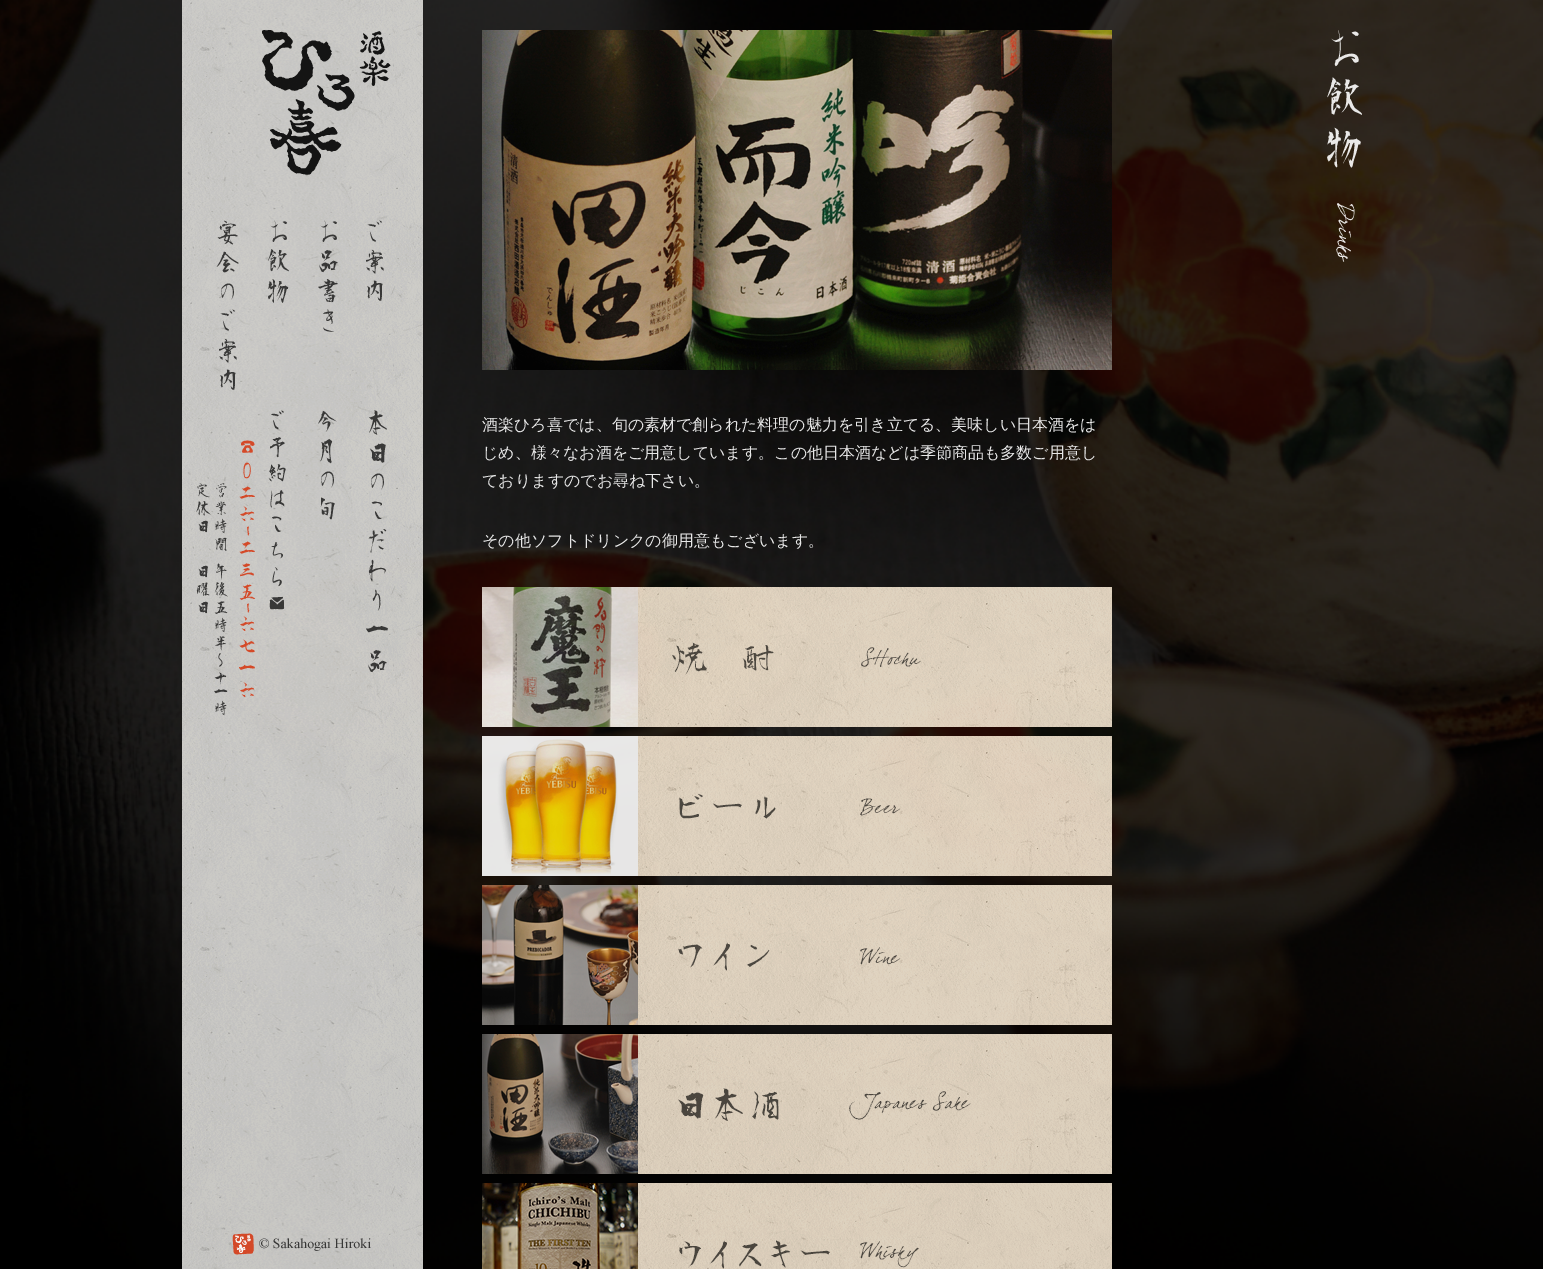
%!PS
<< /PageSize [1543 1269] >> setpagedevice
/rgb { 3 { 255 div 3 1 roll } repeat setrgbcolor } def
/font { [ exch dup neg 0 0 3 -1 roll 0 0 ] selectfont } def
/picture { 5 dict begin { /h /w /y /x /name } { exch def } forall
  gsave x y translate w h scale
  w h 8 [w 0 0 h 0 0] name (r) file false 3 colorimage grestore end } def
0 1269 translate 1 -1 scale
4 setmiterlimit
255 255 255 rgb
0 0 1543 1269 rectfill
(img/1.rgb) 0 0 1543 1269 picture
(img/2.rgb) 182 0 241 1269 picture
(img/3.rgb) 262 30 129 145 picture
(img/4.rgb) 216 220 23 170 picture
(img/5.rgb) 268 220 21 83 picture
(img/6.rgb) 318 220 20 112 picture
(img/7.rgb) 366 220 18 81 picture
(img/8.rgb) 196 440 59 276 picture
(img/9.rgb) 268 410 18 200 picture
(img/10.rgb) 318 410 19 110 picture
(img/11.rgb) 366 410 22 263 picture
(img/12.rgb) 1327 30 35 232 picture
(img/13.rgb) 482 30 630 340 picture
(img/14.rgb) 482 587 630 140 picture
(img/15.rgb) 482 736 630 140 picture
(img/16.rgb) 482 885 630 140 picture
(img/17.rgb) 482 1034 630 140 picture
(img/18.rgb) 482 1183 630 86 picture
(img/19.rgb) 232 1233 139 22 picture
/WenQuanYiZenHei-Medium 16 font
231 231 231 rgb
[
  [(酒楽ひろ喜では、旬の素材で創られた料理の魅力を引き立てる、美味しい日本酒をは) 482 430]
  [(じめ、様々なお酒をご用意しています。この他日本酒などは季節商品も多数ご用意し) 482 458]
  [(ておりますのでお尋ね下さい。) 482 486]
  [(その他ソフトドリンクの御用意もございます。) 482 546]
] { aload pop moveto show } forall
showpage
